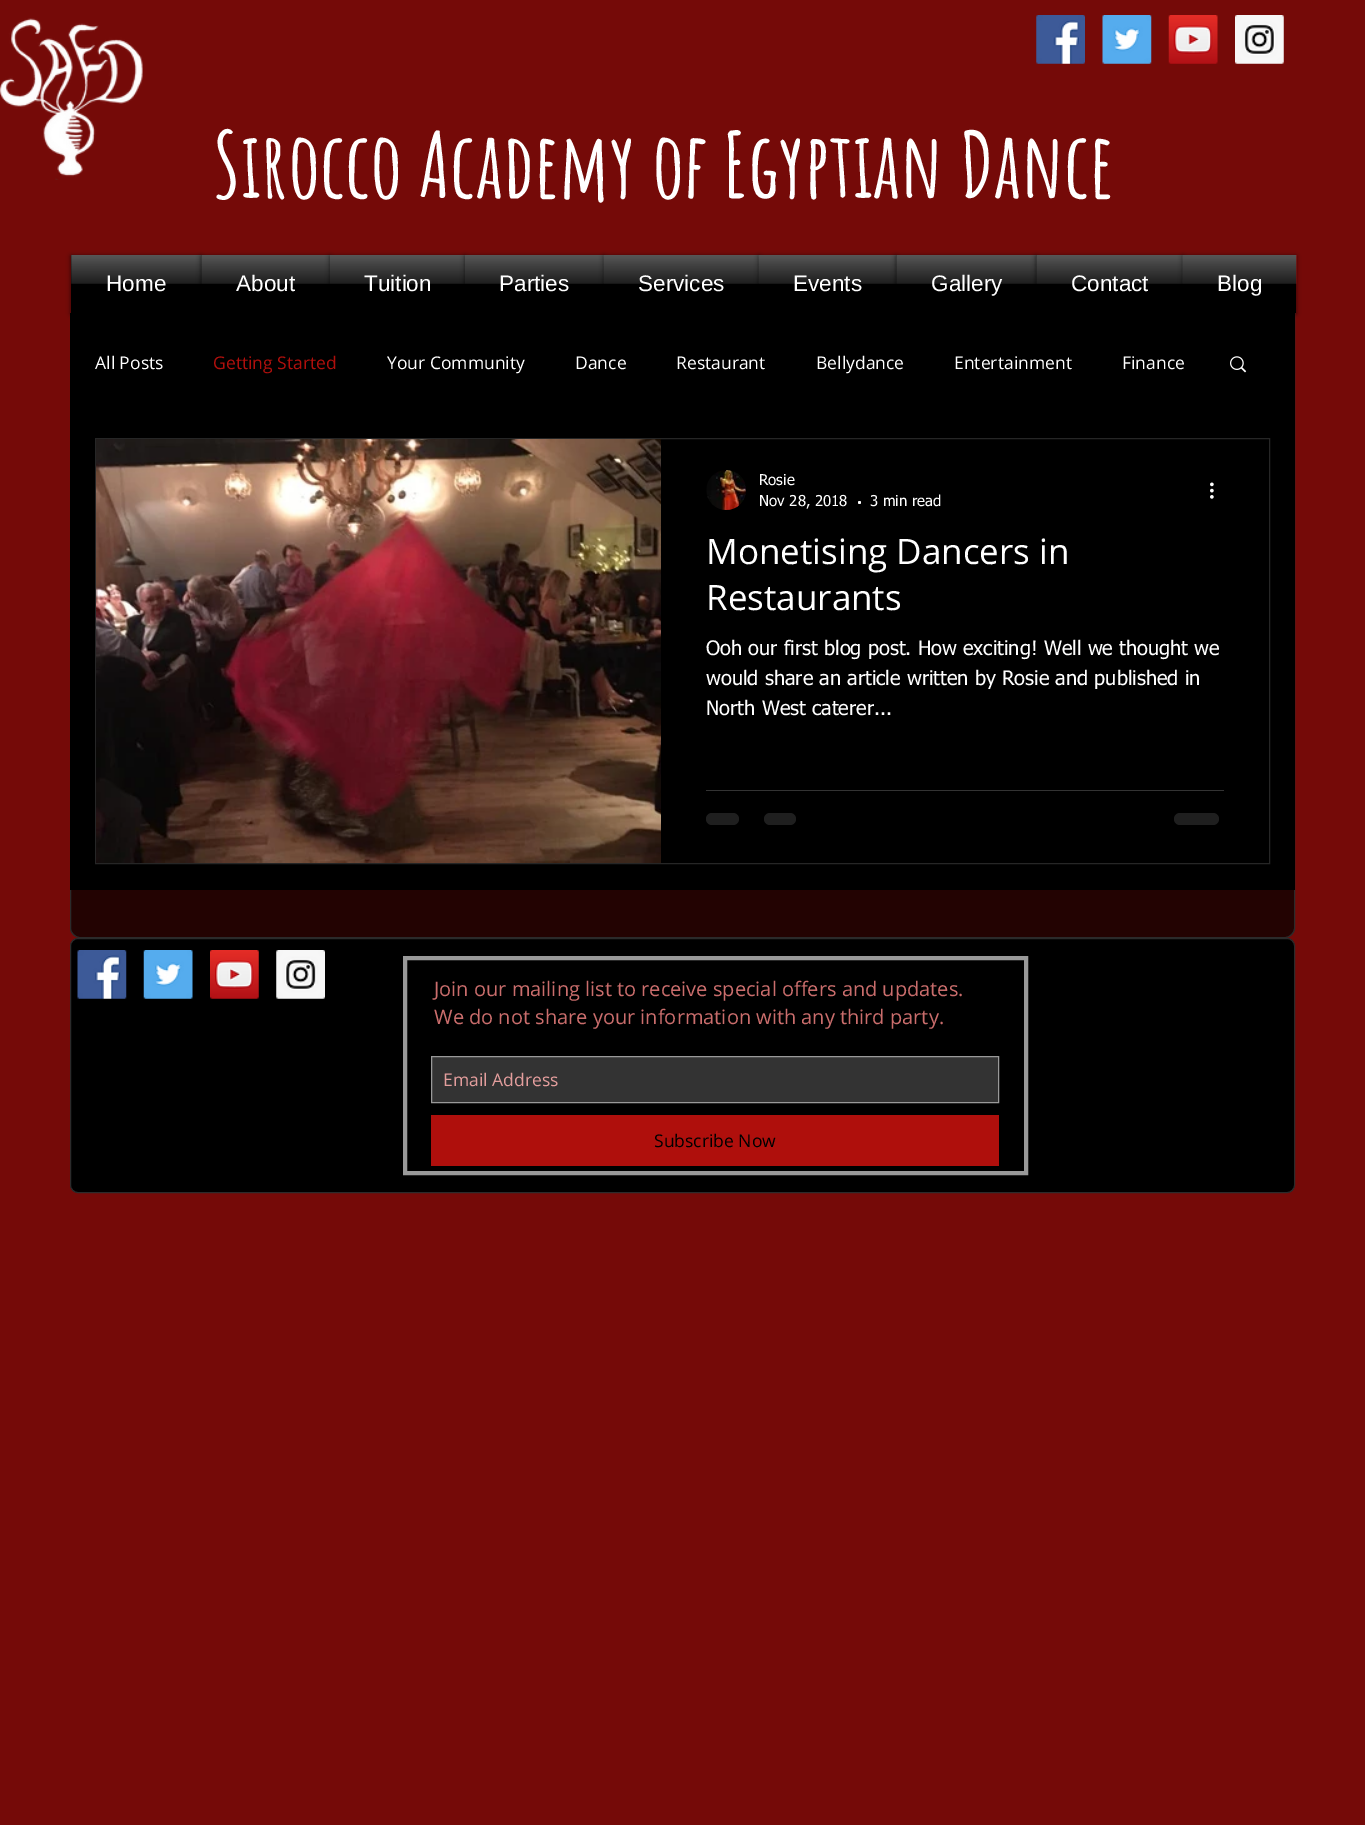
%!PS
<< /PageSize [1365 1825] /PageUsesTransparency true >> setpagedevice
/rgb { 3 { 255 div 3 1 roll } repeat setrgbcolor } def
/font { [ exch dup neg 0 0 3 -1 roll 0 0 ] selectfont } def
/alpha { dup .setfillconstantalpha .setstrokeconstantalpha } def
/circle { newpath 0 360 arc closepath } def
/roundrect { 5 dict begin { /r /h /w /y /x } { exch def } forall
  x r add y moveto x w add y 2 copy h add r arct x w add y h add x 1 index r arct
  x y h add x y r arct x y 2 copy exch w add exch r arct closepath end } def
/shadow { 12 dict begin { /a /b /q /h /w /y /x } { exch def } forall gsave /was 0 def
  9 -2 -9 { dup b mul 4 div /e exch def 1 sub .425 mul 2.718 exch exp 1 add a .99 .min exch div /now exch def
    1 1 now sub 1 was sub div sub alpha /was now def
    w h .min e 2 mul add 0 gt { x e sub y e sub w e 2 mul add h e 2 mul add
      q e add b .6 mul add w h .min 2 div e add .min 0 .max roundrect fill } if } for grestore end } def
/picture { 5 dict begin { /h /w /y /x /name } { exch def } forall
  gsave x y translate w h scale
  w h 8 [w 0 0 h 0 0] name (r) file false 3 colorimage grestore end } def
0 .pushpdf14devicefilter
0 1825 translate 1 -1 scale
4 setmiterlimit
117 10 8 rgb
0 0 1365 1825 rectfill
(img/1.rgb) 0 18 143 162 picture
(img/2.rgb) 1036 15 49 49 picture
(img/3.rgb) 1102 15 50 49 picture
(img/4.rgb) 1168 15 50 49 picture
(img/5.rgb) 1235 15 49 49 picture
0 0 0 rgb
71 256 130 58 0 2.5 0.6 shadow
71 255 130 58 rectfill
(img/6.rgb) 71 255 130 29 picture
201 256 129 58 0 2.5 0.6 shadow
201 255 129 58 rectfill
(img/7.rgb) 201 255 129 29 picture
330 256 135 58 0 2.5 0.6 shadow
330 255 135 58 rectfill
(img/8.rgb) 330 255 135 29 picture
465 256 139 58 0 2.5 0.6 shadow
465 255 139 58 rectfill
(img/9.rgb) 465 255 139 29 picture
604 256 155 58 0 2.5 0.6 shadow
604 255 155 58 rectfill
(img/10.rgb) 603 255 156 29 picture
759 256 137 58 0 2.5 0.6 shadow
759 255 137 58 rectfill
(img/11.rgb) 758 255 138 29 picture
896 256 140 58 0 2.5 0.6 shadow
896 255 140 58 rectfill
(img/12.rgb) 896 255 140 29 picture
1036 256 147 58 0 2.5 0.6 shadow
1036 255 147 58 rectfill
(img/13.rgb) 1036 255 147 29 picture
1183 256 113 58 0 2.5 0.6 shadow
1183 255 113 58 rectfill
(img/14.rgb) 1182 255 115 29 picture
0.7 alpha
70.5 313.5 moveto 1294.5 313.5 lineto 1294.5 928 lineto 1294.5 933 1290 937.5 1285 937.5 curveto 80 937.5 lineto 75 937.5 70.5 933 70.5 928 curveto closepath fill
1 alpha
43 43 43 rgb
70.5 313.5 moveto 1294.5 313.5 lineto 1294.5 928 lineto 1294.5 933 1290 937.5 1285 937.5 curveto 80 937.5 lineto 75 937.5 70.5 933 70.5 928 curveto closepath stroke
0 0 0 rgb
70 313 1225 577 rectfill
(img/15.rgb) 1230 356 17 17 picture
38 38 38 rgb
95.5 438.5 1174 425 rectstroke
(img/16.rgb) 96 439 565 424 picture
(img/17.rgb) 706 470 40 40 picture
255 255 255 rgb
859.5 502.5 1.5 circle fill
(img/18.rgb) 1210 482 4 17 picture
51 51 51 rgb
706 790 518 1 rectfill
31 31 31 rgb
706 813 33 12 6 roundrect fill
764 813 32 12 6 roundrect fill
1174 813 45 12 6 roundrect fill
0 0 0 rgb
70.5 938.5 1224 254 7.5 roundrect gsave fill grestore
43 43 43 rgb
stroke
(img/19.rgb) 77 950 50 49 picture
(img/20.rgb) 143 950 50 49 picture
(img/21.rgb) 210 950 49 49 picture
(img/22.rgb) 276 950 49 49 picture
153 153 153 rgb
4 setlinewidth
405 958 621 215 rectstroke
51 51 51 rgb
431.5 1056.5 moveto 998.5 1056.5 lineto 998.5 1102.5 lineto 431.5 1102.5 lineto closepath gsave fill grestore
153 153 153 rgb
1 setlinewidth
stroke
175 15 12 rgb
431 1115 568 51 rectfill
/AmaticSC-Bold 90 font
255 255 255 rgb
213 198 moveto (Sirocco Academy of Egyptian Dance) show
/LiberationSans-Regular 22.5 font
[
  [(Home) 106 291]
  [(About) 236 291]
  [(Tuition) 364 291]
  [(Parties) 499 291]
  [(Services) 638 291]
  [(Events) 793 291]
  [(Gallery) 931 291]
  [(Contact) 1071 291]
  [(Blog) 1217 291]
] { aload pop moveto show } forall
/OpenSans-Regular 17.5 font
95 369 moveto (All Posts) show
175 15 12 rgb
213 369 moveto (Getting Started) show
255 255 255 rgb
[
  [(Your Community) 387 369]
  [(Dance) 575 369]
  [(Restaurant) 676 369]
  [(Bellydance) 816 369]
  [(Entertainment) 954 369]
  [(Finance) 1122 369]
] { aload pop moveto show } forall
/tahoma-Regular 15 font
[
  [(Rosie) 759 485]
  [(Nov 28, 2018) 759 506]
  [(3 min read) 870 506]
] { aload pop moveto show } forall
/OpenSans-Regular 35 font
706 564 moveto (Monetising Dancers in) show
706 610 moveto (Restaurants) show
/tahoma-Regular 20 font
[
  [(Ooh our first blog post. How exciting! Well we thought we) 706 655]
  [(would share an article written by Rosie and published in) 706 685]
  [(North West caterer...) 706 715]
] { aload pop moveto show } forall
/OpenSans-Regular 20 font
202 109 108 rgb
434 996 moveto (Join our mailing list to receive special offers and updates.) show
434 1024 moveto (We do not share your information with any third party.) show
/OpenSans-Regular 17.5 font
228 158 157 rgb
443 1086 moveto (Email Address) show
0 0 0 rgb
654 1147 moveto (Subscribe Now) show
.poppdf14devicefilter showpage
